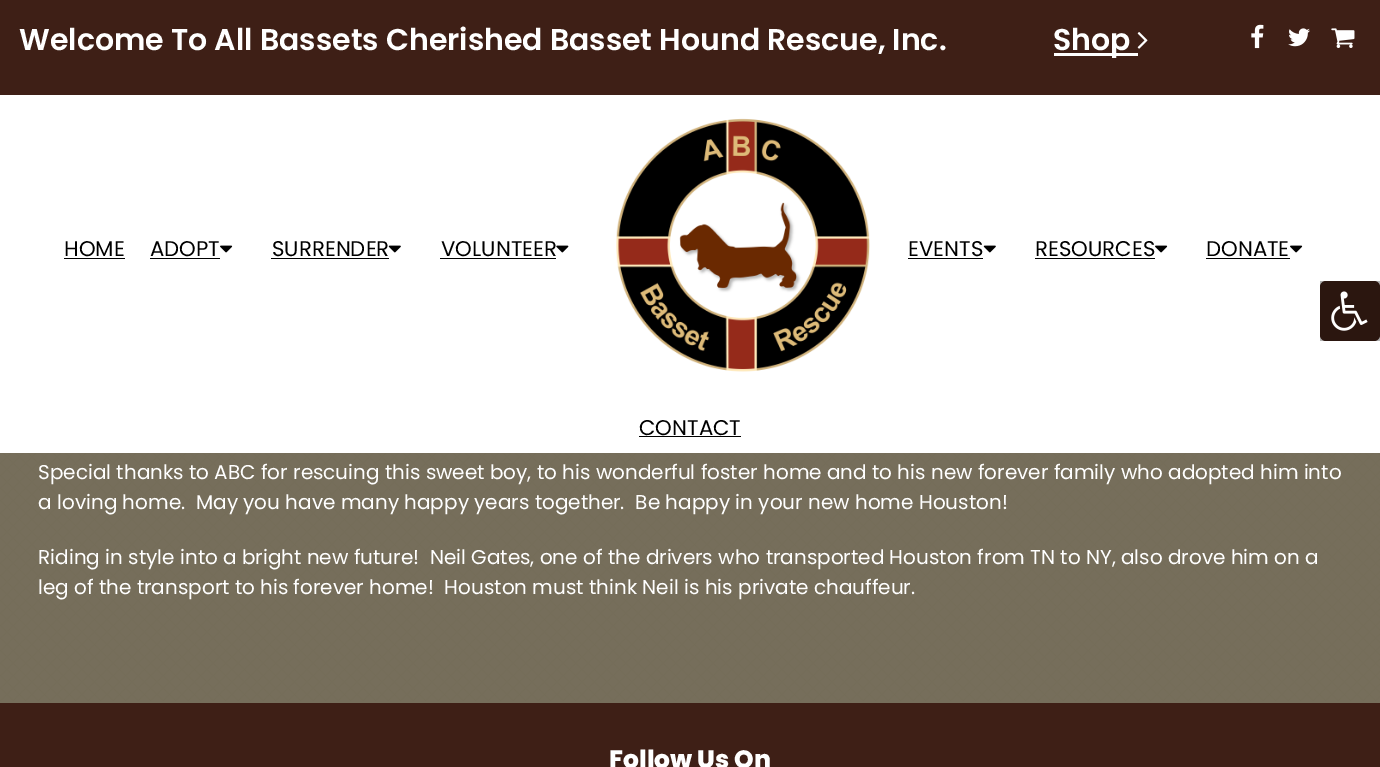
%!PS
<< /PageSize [1380 767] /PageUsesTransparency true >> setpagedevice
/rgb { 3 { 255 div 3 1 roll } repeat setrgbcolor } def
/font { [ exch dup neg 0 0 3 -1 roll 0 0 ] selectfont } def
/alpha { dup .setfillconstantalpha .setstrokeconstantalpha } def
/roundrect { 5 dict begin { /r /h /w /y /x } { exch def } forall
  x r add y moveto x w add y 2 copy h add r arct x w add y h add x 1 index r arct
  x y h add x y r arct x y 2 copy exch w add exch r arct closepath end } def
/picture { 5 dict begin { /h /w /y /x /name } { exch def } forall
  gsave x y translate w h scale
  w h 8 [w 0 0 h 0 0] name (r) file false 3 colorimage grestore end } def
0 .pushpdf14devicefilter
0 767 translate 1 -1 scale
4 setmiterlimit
255 255 255 rgb
0 0 1380 767 rectfill
(img/1.rgb) 0 453 1380 248 picture
62 31 22 rgb
0 0 1380 95 rectfill
255 255 255 rgb
1054 53 84 3 rectfill
(img/2.rgb) 1137 32 11 17 picture
(img/3.rgb) 1251 24 13 25 picture
(img/4.rgb) 1288 28 22 19 picture
(img/5.rgb) 1331 28 24 20 picture
0 0 0 rgb
64 258 61 1 rectfill
150 258 70 1 rectfill
(img/6.rgb) 220 245 13 8 picture
271 258 118 1 rectfill
(img/7.rgb) 388 245 13 8 picture
440 258 116 1 rectfill
(img/8.rgb) 556 245 13 8 picture
(img/9.rgb) 616 118 254 254 picture
908 258 75 1 rectfill
(img/7.rgb) 983 245 13 8 picture
1035 258 120 1 rectfill
(img/6.rgb) 1155 245 13 8 picture
1206 258 84 1 rectfill
(img/6.rgb) 1290 245 13 8 picture
[
  [639 436 102 1 0 0 0]
] { aload pop rgb rectfill } forall
0.7 alpha
[
  [0 453 1380 250 60 49 21]
] { aload pop rgb rectfill } forall
1 alpha
[
  [0 703 1380 64 62 31 22]
] { aload pop rgb rectfill } forall
1320 281 60 60 6 roundrect fill
0.3 alpha
0 0 0 rgb
1320 281 60 60 rectfill
1 alpha
(img/10.rgb) 1331 291 37 40 picture
/Poppins-SemiBold 30 font
255 255 255 rgb
19 50 moveto (Welcome To All Bassets Cherished Basset Hound Rescue, Inc.) show
1053 50 moveto (Shop) show
/Poppins-Regular 21.25 font
0 0 0 rgb
[
  [(HOME) 64 256]
  [(ADOPT) 150 256]
  [(SURRENDER) 272 256]
  [(VOLUNTEER) 441 256]
  [(EVENTS) 908 256]
  [(RESOURCES) 1035 256]
  [(DONATE) 1206 256]
  [(CONTACT) 639 435]
] { aload pop moveto show } forall
/Poppins-Regular 20 font
255 255 255 rgb
[
  [(Special thanks to ABC for rescuing this sweet boy, to his wonderful foster home and to his new forever family who adopted him into) 38 479]
  [(a loving home.  May you have many happy years together.  Be happy in your new home Houston!) 38 509]
  [(Riding in style into a bright new future!  Neil Gates, one of the drivers who transported Houston from TN to NY, also drove him on a) 38 564]
  [(leg of the transport to his forever home!  Houston must think Neil is his private chauffeur.) 38 594]
] { aload pop moveto show } forall
/Poppins-ExtraBold 25 font
609 768 moveto (Follow Us On) show
.poppdf14devicefilter showpage
